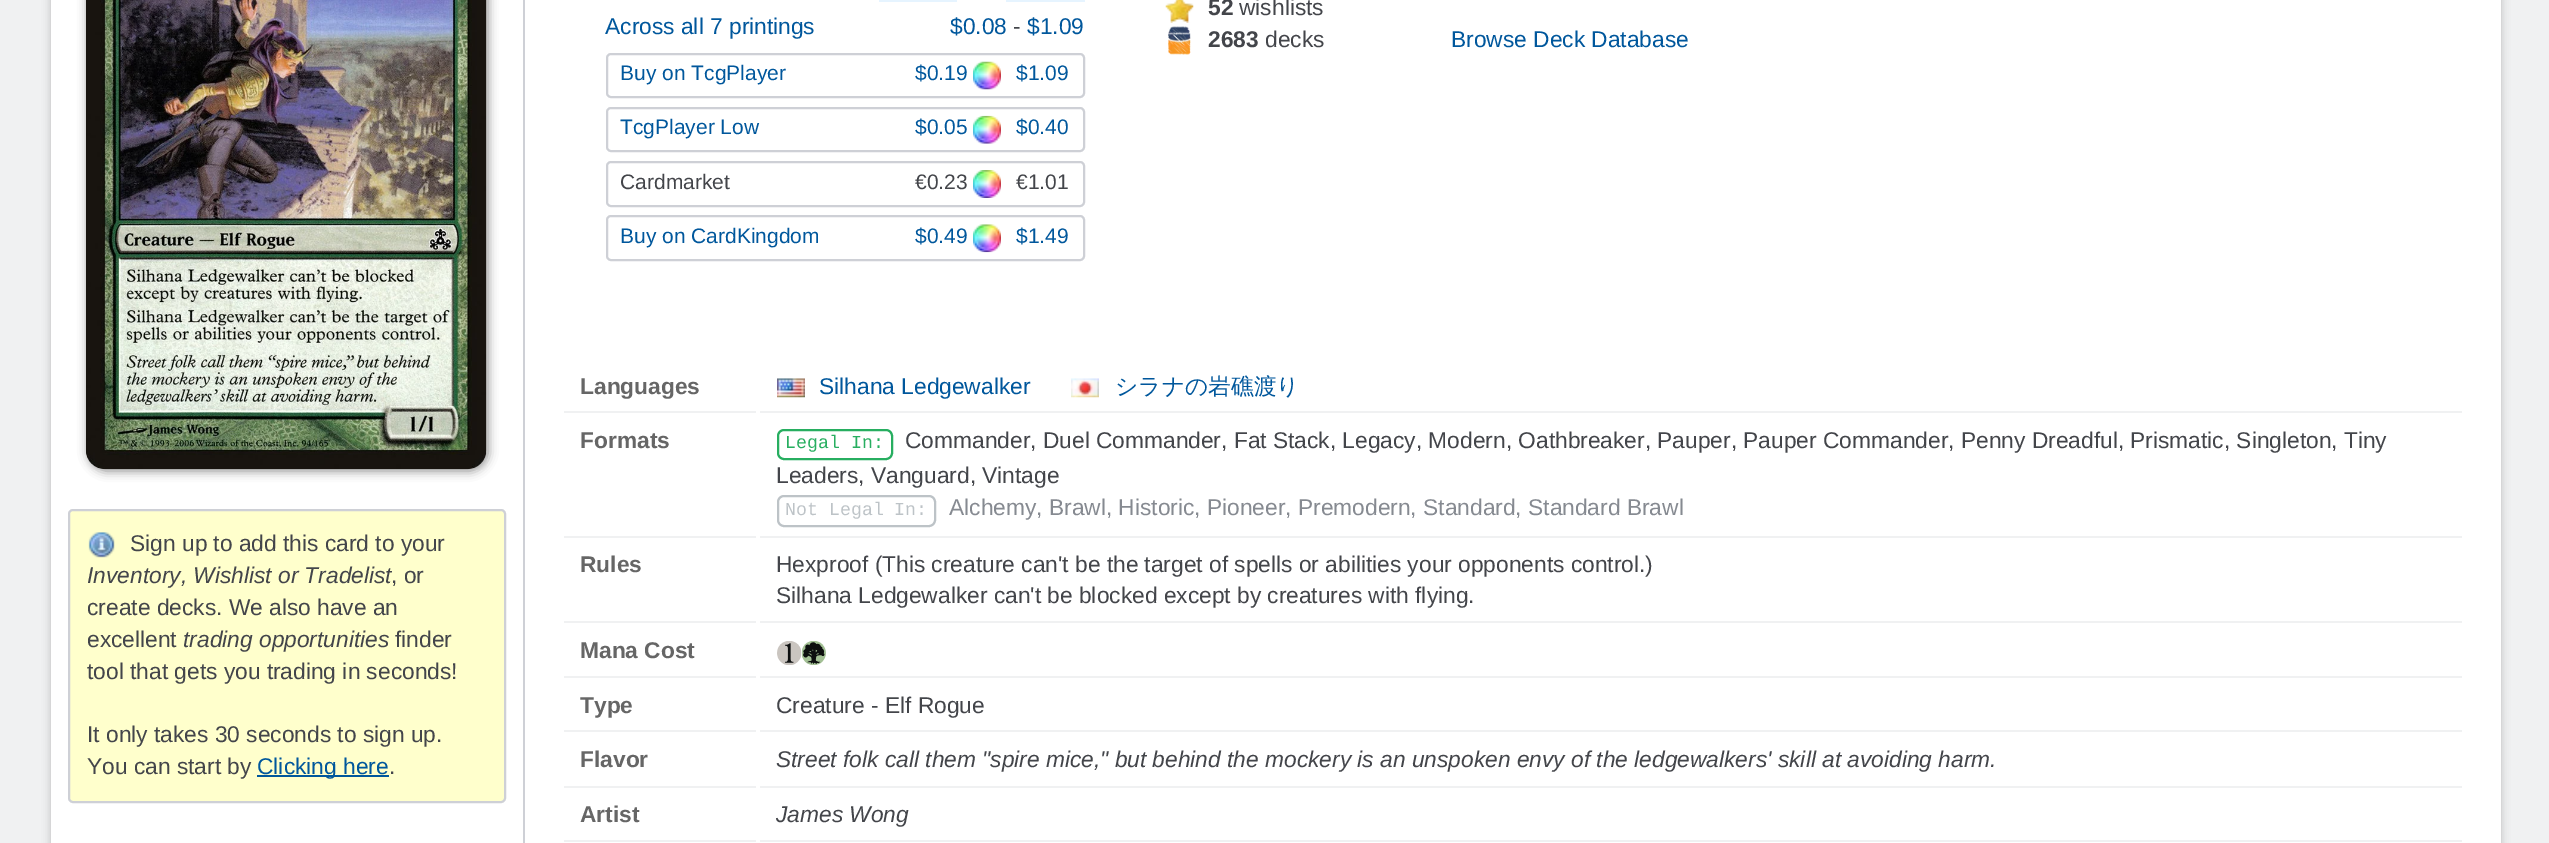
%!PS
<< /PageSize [2549 843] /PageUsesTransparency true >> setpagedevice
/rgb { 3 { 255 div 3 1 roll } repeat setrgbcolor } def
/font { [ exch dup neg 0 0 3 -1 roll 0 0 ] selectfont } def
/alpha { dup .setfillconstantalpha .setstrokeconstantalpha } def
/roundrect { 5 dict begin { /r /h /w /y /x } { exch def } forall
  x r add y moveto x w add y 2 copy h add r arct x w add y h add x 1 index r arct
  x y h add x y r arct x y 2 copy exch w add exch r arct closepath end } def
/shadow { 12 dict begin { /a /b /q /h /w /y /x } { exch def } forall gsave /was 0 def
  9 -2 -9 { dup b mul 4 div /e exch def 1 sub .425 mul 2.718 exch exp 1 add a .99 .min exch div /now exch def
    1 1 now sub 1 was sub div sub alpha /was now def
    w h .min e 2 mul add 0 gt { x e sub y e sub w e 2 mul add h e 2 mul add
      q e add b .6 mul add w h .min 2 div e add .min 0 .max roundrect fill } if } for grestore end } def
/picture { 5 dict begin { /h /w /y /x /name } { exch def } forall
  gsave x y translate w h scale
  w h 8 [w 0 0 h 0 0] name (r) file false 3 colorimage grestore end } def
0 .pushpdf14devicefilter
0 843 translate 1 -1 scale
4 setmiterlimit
240 241 242 rgb
0 0 2549 843 rectfill
187 187 187 rgb
51 -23 2450 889 9 4.5 1 shadow
255 255 255 rgb
51 0 2450 843 rectfill
206 208 214 rgb
523 0 2 843 rectfill
0 0 0 rgb
88 -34 400 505 19 5 0.45 shadow
(img/1.rgb) 85 0 402 470 picture
255 255 204 rgb
69 510 436 292 4 roundrect gsave fill grestore
206 208 214 rgb
2 setlinewidth
stroke
(img/2.rgb) 88 532 27 26 picture
[
  [257 775 132 2 0 87 156]
  [879 0 78 2 230 244 255]
  [1006 0 79 2 230 244 255]
] { aload pop rgb rectfill } forall
206 208 214 rgb
607 54 477 43 4 roundrect stroke
(img/3.rgb) 973 61 28 29 picture
607 108 477 43 4 roundrect stroke
(img/4.rgb) 973 115 28 29 picture
607 162 477 44 4 roundrect stroke
(img/5.rgb) 973 170 28 28 picture
607 216 477 44 4 roundrect stroke
(img/6.rgb) 973 224 28 29 picture
(img/7.rgb) 1165 0 29 23 picture
(img/8.rgb) 1168 26 23 29 picture
240 241 242 rgb
564 411 192 2 rectfill
760 411 1702 2 rectfill
(img/9.rgb) 777 378 28 20 picture
(img/10.rgb) 1071 378 28 20 picture
564 536 192 2 rectfill
760 536 1702 2 rectfill
39 174 96 rgb
778 430 114 29 6 roundrect stroke
189 195 199 rgb
778 496 157 30 6 roundrect stroke
[
  [564 621 192 2 240 241 242]
  [760 621 1702 2 240 241 242]
  [564 676 192 2 240 241 242]
  [760 676 1702 2 240 241 242]
] { aload pop rgb rectfill } forall
(img/11.rgb) 777 641 25 24 picture
(img/12.rgb) 801 641 25 24 picture
[
  [564 730 192 2 240 241 242]
  [760 730 1702 2 240 241 242]
  [564 786 192 2 240 241 242]
  [760 786 1702 2 240 241 242]
  [564 840 192 2 240 241 242]
  [760 840 1702 2 240 241 242]
] { aload pop rgb rectfill } forall
/LiberationSans-Regular 22.75 font
67 69 74 rgb
130 551 moveto (Sign up to add this card to your) show
/LiberationSans-Italic 22.75 font
87 583 moveto (Inventory, Wishlist or Tradelist) show
/LiberationSans-Regular 22.75 font
[
  [(, or) 391 583]
  [(create decks. We also have an) 87 615]
  [(excellent) 87 647]
] { aload pop moveto show } forall
/LiberationSans-Italic 22.75 font
183 647 moveto (trading opportunities) show
/LiberationSans-Regular 22.75 font
[
  [(finder) 395 647]
  [(tool that gets you trading in seconds!) 87 679]
  [(It only takes 30 seconds to sign up.) 87 742]
  [(You can start by) 87 774]
] { aload pop moveto show } forall
0 87 156 rgb
257 774 moveto (Clicking here) show
67 69 74 rgb
389 774 moveto (.) show
0 87 156 rgb
605 34 moveto (Across all 7 printings) show
950 34 moveto ($0.08) show
67 69 74 rgb
1013 34 moveto (-) show
0 87 156 rgb
1027 34 moveto ($1.09) show
/LiberationSans-Regular 21 font
[
  [(Buy on TcgPlayer) 620 80]
  [($0.19) 915 80]
  [($1.09) 1016 80]
  [(TcgPlayer Low) 620 134]
  [($0.05) 915 134]
  [($0.40) 1016 134]
] { aload pop moveto show } forall
67 69 74 rgb
[
  [(Cardmarket) 620 189]
  [(€0.23) 915 189]
  [(€1.01) 1016 189]
] { aload pop moveto show } forall
0 87 156 rgb
[
  [(Buy on CardKingdom) 620 243]
  [($0.49) 915 243]
  [($1.49) 1016 243]
] { aload pop moveto show } forall
/LiberationSans-Bold 22.75 font
67 69 74 rgb
1208 15 moveto (52) show
/LiberationSans-Regular 22.75 font
1239 15 moveto (wishlists) show
/LiberationSans-Bold 22.75 font
1208 47 moveto (2683) show
/LiberationSans-Regular 22.75 font
1265 47 moveto (decks) show
0 87 156 rgb
1451 47 moveto (Browse Deck Database) show
/LiberationSans-Bold 22.75 font
102 102 102 rgb
580 394 moveto (Languages) show
/LiberationSans-Regular 22.75 font
0 87 156 rgb
819 394 moveto (Silhana Ledgewalker) show
/WenQuanYiZenHei-Medium 22.75 font
1115 394 moveto (シラナの岩礁渡り) show
/LiberationSans-Bold 22.75 font
102 102 102 rgb
580 448 moveto (Formats) show
/LiberationMono-Regular 18.25 font
39 174 96 rgb
785 448 moveto (Legal In:) show
/LiberationSans-Regular 22.75 font
67 69 74 rgb
905 448 moveto (Commander, Duel Commander, Fat Stack, Legacy, Modern, Oathbreaker, Pauper, Pauper Commander, Penny Dreadful, Prismatic, Singleton, Tiny) show
776 483 moveto (Leaders, Vanguard, Vintage) show
/LiberationMono-Regular 18.25 font
189 195 199 rgb
785 515 moveto (Not Legal In:) show
/LiberationSans-Regular 22.75 font
134 138 145 rgb
949 515 moveto (Alchemy, Brawl, Historic, Pioneer, Premodern, Standard, Standard Brawl) show
/LiberationSans-Bold 22.75 font
102 102 102 rgb
580 572 moveto (Rules) show
/LiberationSans-Regular 22.75 font
67 69 74 rgb
776 572 moveto (Hexproof \(This creature can't be the target of spells or abilities your opponents control.\)) show
776 603 moveto (Silhana Ledgewalker can't be blocked except by creatures with flying.) show
/LiberationSans-Bold 22.75 font
102 102 102 rgb
580 658 moveto (Mana Cost) show
580 713 moveto (Type) show
/LiberationSans-Regular 22.75 font
67 69 74 rgb
776 713 moveto (Creature - Elf Rogue) show
/LiberationSans-Bold 22.75 font
102 102 102 rgb
580 767 moveto (Flavor) show
/LiberationSans-Italic 22.75 font
67 69 74 rgb
776 767 moveto (Street folk call them "spire mice," but behind the mockery is an unspoken envy of the ledgewalkers' skill at avoiding harm.) show
/LiberationSans-Bold 22.75 font
102 102 102 rgb
580 822 moveto (Artist) show
/LiberationSans-Italic 22.75 font
67 69 74 rgb
776 822 moveto (James Wong) show
.poppdf14devicefilter showpage
